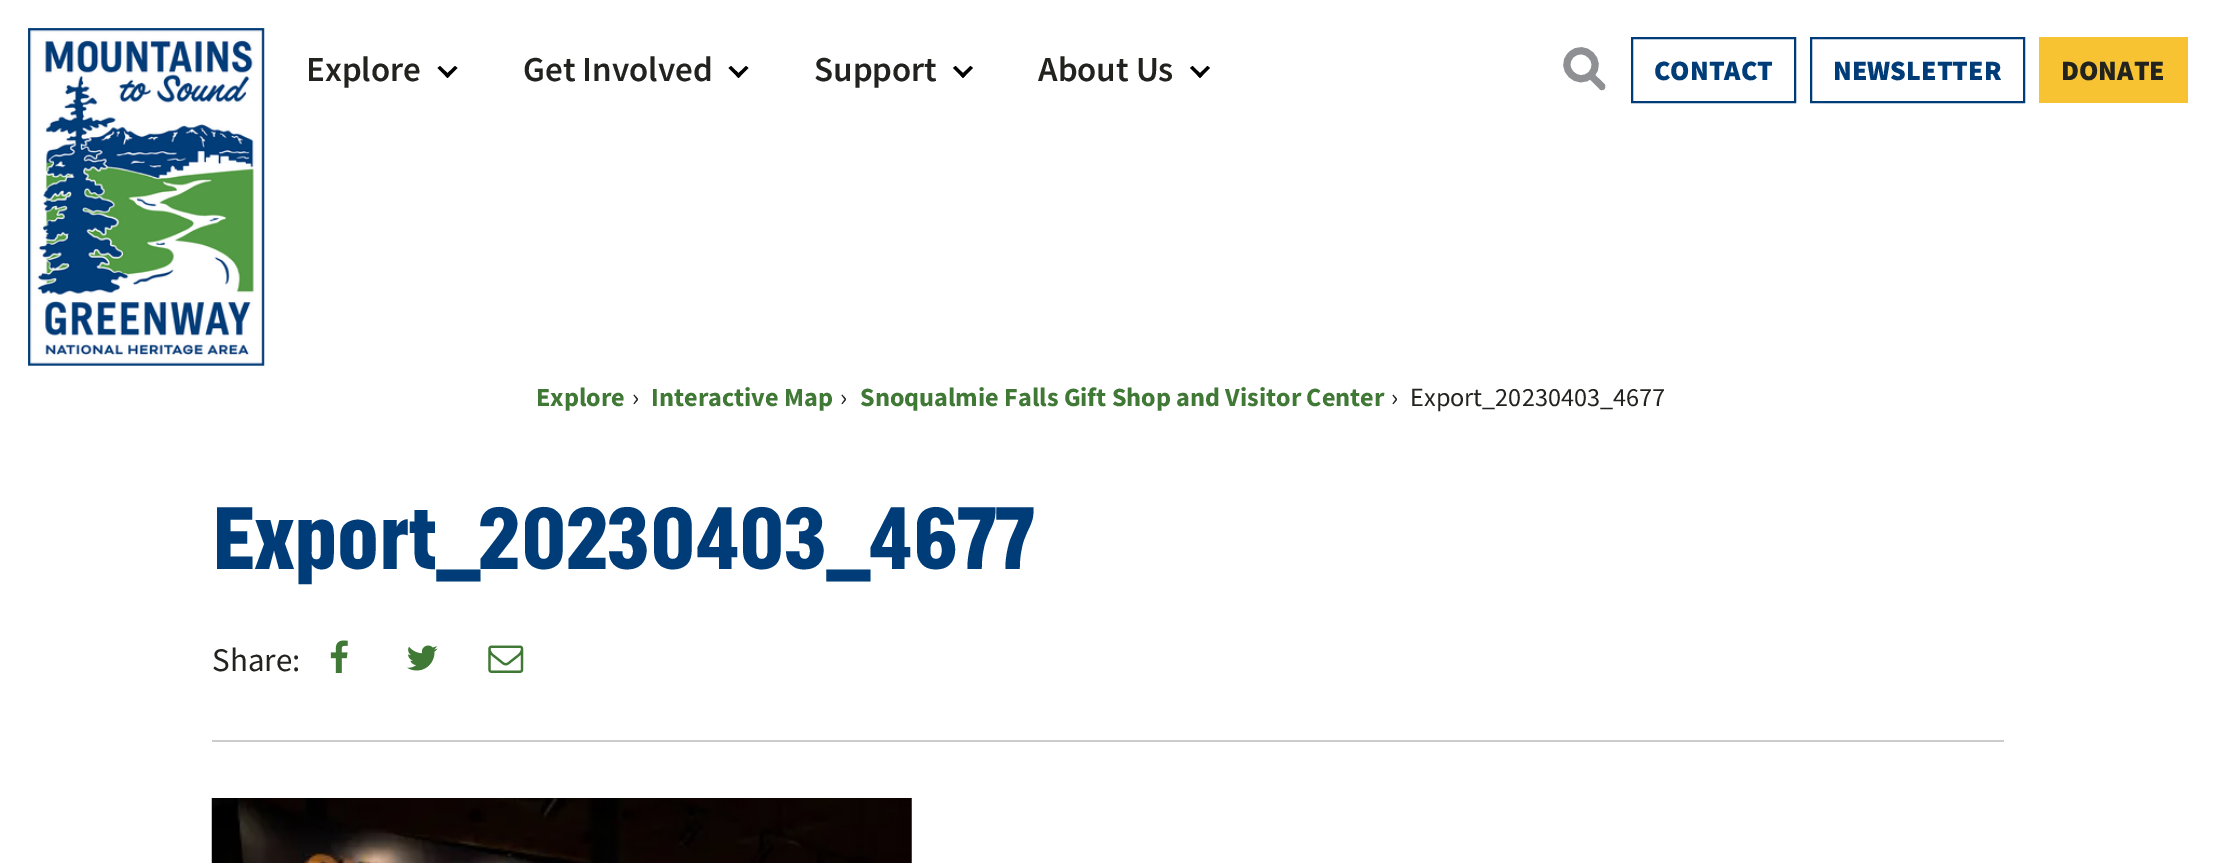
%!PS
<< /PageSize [2215 863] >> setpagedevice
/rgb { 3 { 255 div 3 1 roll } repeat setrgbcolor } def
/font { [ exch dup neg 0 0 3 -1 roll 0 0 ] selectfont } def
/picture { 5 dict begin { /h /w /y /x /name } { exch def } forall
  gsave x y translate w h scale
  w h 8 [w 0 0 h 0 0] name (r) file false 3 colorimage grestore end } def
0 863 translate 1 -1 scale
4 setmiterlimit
255 255 255 rgb
0 0 2215 863 rectfill
(img/1.rgb) 28 28 237 338 picture
0 0 0 rgb
455 66 moveto 457.5 68 lineto 447.5 78 lineto 445 75.5 lineto closepath fill
440 66 moveto 450 75.5 lineto 447.5 78 lineto 437.5 68 lineto closepath fill
746 66 moveto 748.5 68 lineto 738.5 78 lineto 736 75.5 lineto closepath fill
731 66 moveto 741 75.5 lineto 738.5 78 lineto 728.5 68 lineto closepath fill
970.5 66 moveto 973 68 lineto 963 78 lineto 960.5 75.5 lineto closepath fill
955.5 66 moveto 965.5 75.5 lineto 963 78 lineto 953 68 lineto closepath fill
1207.5 66 moveto 1210 68 lineto 1200 78 lineto 1197.5 75.5 lineto closepath fill
1192.5 66 moveto 1202.5 75.5 lineto 1200 78 lineto 1190 68 lineto closepath fill
143 144 147 rgb
7 setlinewidth
1571 55 moveto 1584 42 1604 61.5 1591 74.5 curveto 1578 87.5 1558 68 1571 55 curveto closepath stroke
1592 72 moveto 1604.5 84 lineto 1605.5 85.5 1605.5 87.5 1604.5 89 curveto 1603 90.5 1600.5 90.5 1599.5 89 curveto 1587 76.5 lineto closepath fill
0 61 120 rgb
2 setlinewidth
1632 38 163 64 rectstroke
1811 38 213 64 rectstroke
248 195 50 rgb
2039 37 149 66 rectfill
204 204 204 rgb
212 740 1792 2 rectfill
(img/2.rgb) 330 640 18 33 picture
(img/3.rgb) 407 645 31 26 picture
(img/4.rgb) 488 645 36 28 picture
(img/5.rgb) 211 798 701 65 picture
/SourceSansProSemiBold-SemiBold 35 font
34 34 30 rgb
[
  [(Explore) 306 81]
  [(Get Involved) 523 81]
  [(Support) 814 81]
  [(About Us) 1038 81]
] { aload pop moveto show } forall
/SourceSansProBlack-Black 28 font
0 61 120 rgb
1654 80 moveto (CONTACT) show
1833 80 moveto (NEWSLETTER) show
34 34 30 rgb
2061 80 moveto (DONATE) show
/SourceSansPro-Bold 26.25 font
64 120 53 rgb
536 406 moveto (Explore) show
/SourceSansPro-Regular 26.25 font
34 34 30 rgb
632 406 moveto (›) show
/SourceSansPro-Bold 26.25 font
64 120 53 rgb
651 406 moveto (Interactive Map) show
/SourceSansPro-Regular 26.25 font
34 34 30 rgb
840 406 moveto (›) show
/SourceSansPro-Bold 26.25 font
64 120 53 rgb
860 406 moveto (Snoqualmie Falls Gift Shop and Visitor Center) show
/SourceSansPro-Regular 26.25 font
34 34 30 rgb
1391 406 moveto (›) show
1410 406 moveto (Export_20230403_4677) show
/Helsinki-Bold 87.5 font
0 61 120 rgb
212 569 moveto (Export_20230403_4677) show
/SourceSansPro-Regular 33 font
34 34 30 rgb
212 671 moveto (Share:) show
showpage
